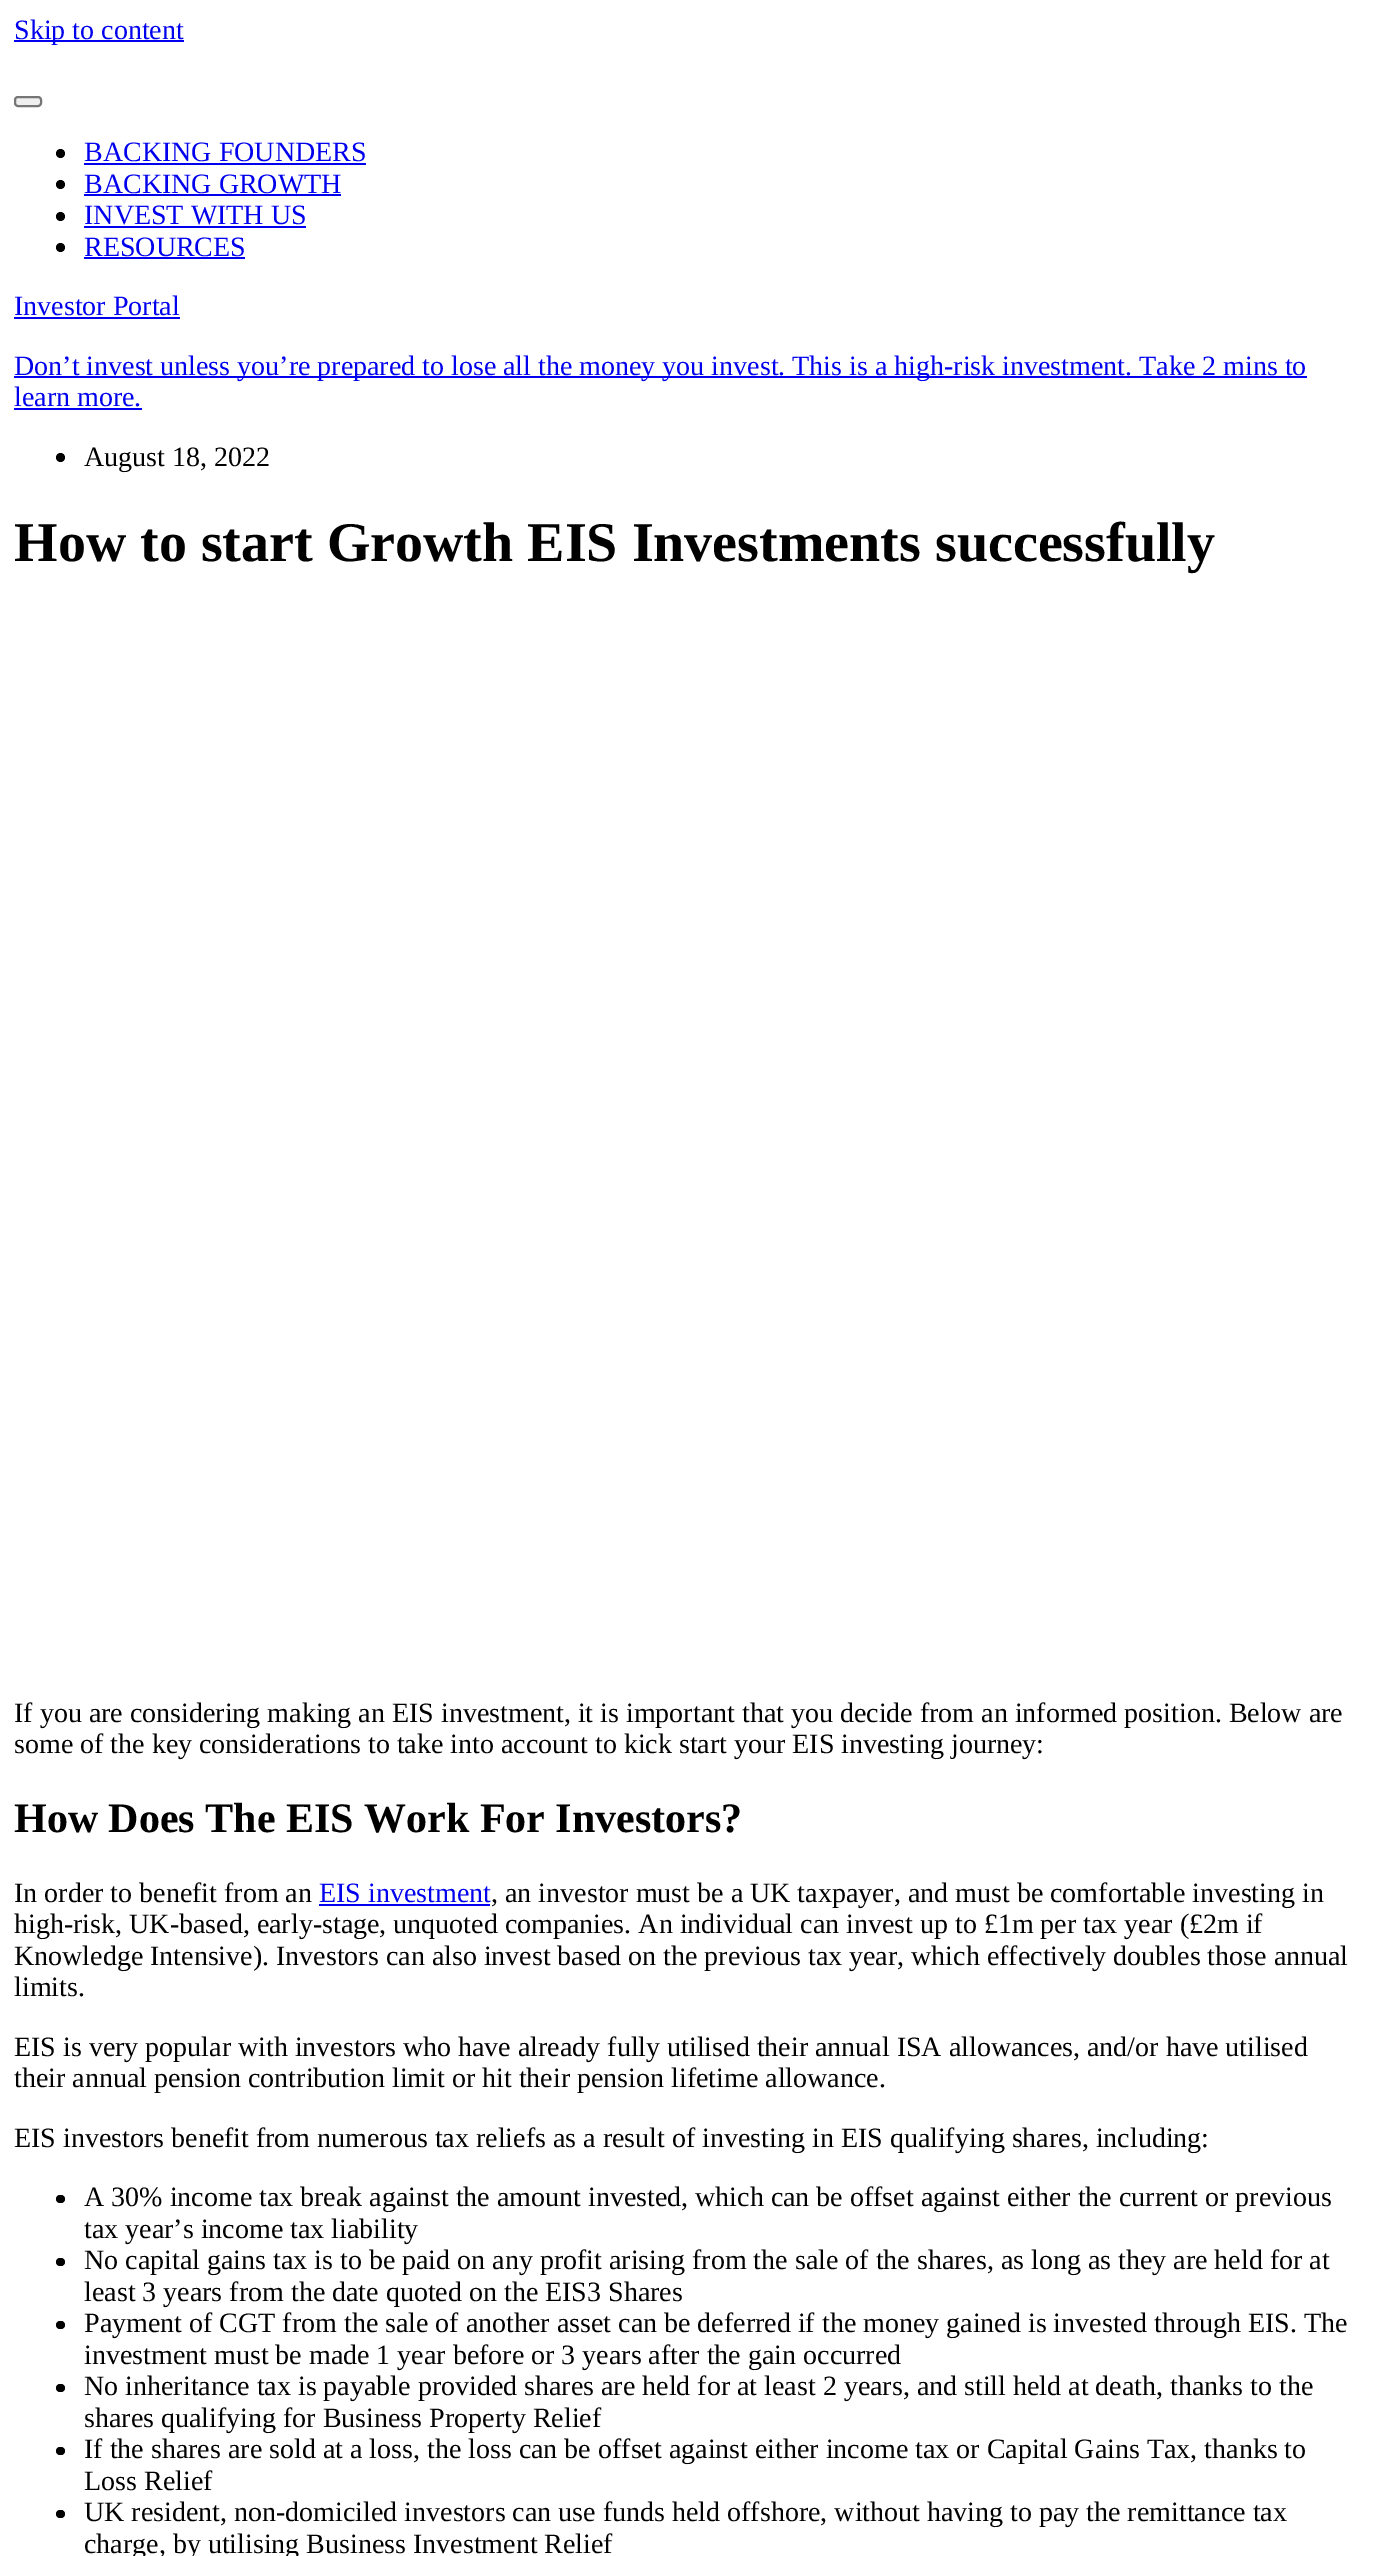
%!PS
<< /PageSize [1375 2556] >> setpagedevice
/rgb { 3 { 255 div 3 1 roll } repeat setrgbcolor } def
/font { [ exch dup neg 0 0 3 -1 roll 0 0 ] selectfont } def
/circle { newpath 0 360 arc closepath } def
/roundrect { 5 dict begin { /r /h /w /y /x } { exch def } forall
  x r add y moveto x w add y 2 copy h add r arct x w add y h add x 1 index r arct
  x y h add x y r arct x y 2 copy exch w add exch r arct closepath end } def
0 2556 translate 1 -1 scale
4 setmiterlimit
255 255 255 rgb
0 0 1375 2556 rectfill
0 0 238 rgb
14 40 170 2 rectfill
239 239 239 rgb
15 97 26 9 3 roundrect gsave fill grestore
118 118 118 rgb
2 setlinewidth
stroke
0 0 0 rgb
60.5 153.5 4.5 circle fill
0 0 238 rgb
84 163 282 2 rectfill
0 0 0 rgb
60.5 184.5 4.5 circle fill
0 0 238 rgb
84 194 257 2 rectfill
0 0 0 rgb
60.5 216.5 4.5 circle fill
0 0 238 rgb
84 226 222 2 rectfill
0 0 0 rgb
60.5 247.5 4.5 circle fill
[
  [84 257 161 2 0 0 238]
  [14 317 166 2 0 0 238]
  [14 376 1293 2 0 0 238]
  [14 408 128 2 0 0 238]
] { aload pop rgb rectfill } forall
0 0 0 rgb
60.5 457.5 4.5 circle fill
0 0 238 rgb
319 1904 171 2 rectfill
0 0 0 rgb
56 2195 9 8 4 roundrect fill
56 2258 9 8 4 roundrect fill
56 2321 9 8 4 roundrect fill
56 2384 9 8 4 roundrect fill
56 2447 9 8 4 roundrect fill
56 2510 9 8 4 roundrect fill
/LiberationSerif-Regular 28 font
0 0 238 rgb
[
  [(Skip to content) 14 39]
  [(BACKING FOUNDERS) 84 161]
  [(BACKING GROWTH) 84 193]
  [(INVEST WITH US) 84 224]
  [(RESOURCES) 84 256]
  [(Investor Portal) 14 315]
  [(Don’t invest unless you’re prepared to lose all the money you invest. This is a high-risk investment. Take 2 mins to) 14 375]
  [(learn more.) 14 406]
] { aload pop moveto show } forall
0 0 0 rgb
84 466 moveto (August 18, 2022) show
/LiberationSerif-Bold 56 font
14 561 moveto (How to start Growth EIS Investments successfully) show
/LiberationSerif-Regular 28 font
14 1722 moveto (If you are considering making an EIS investment, it is important that you decide from an informed position. Below are) show
14 1753 moveto (some of the key considerations to take into account to kick start your EIS investing journey:) show
/LiberationSerif-Bold 42 font
14 1832 moveto (How Does The EIS Work For Investors?) show
/LiberationSerif-Regular 28 font
14 1902 moveto (In order to benefit from an) show
0 0 238 rgb
319 1902 moveto (EIS investment) show
0 0 0 rgb
[
  [(, an investor must be a UK taxpayer, and must be comfortable investing in) 491 1902]
  [(high-risk, UK-based, early-stage, unquoted companies. An individual can invest up to £1m per tax year \(£2m if) 14 1933]
  [(Knowledge Intensive\). Investors can also invest based on the previous tax year, which effectively doubles those annual) 14 1965]
  [(limits.) 14 1996]
  [(EIS is very popular with investors who have already fully utilised their annual ISA allowances, and/or have utilised) 14 2056]
  [(their annual pension contribution limit or hit their pension lifetime allowance.) 14 2087]
  [(EIS investors benefit from numerous tax reliefs as a result of investing in EIS qualifying shares, including:) 14 2147]
  [(A 30% income tax break against the amount invested, which can be offset against either the current or previous) 84 2206]
  [(tax year’s income tax liability) 84 2238]
  [(No capital gains tax is to be paid on any profit arising from the sale of the shares, as long as they are held for at) 84 2269]
  [(least 3 years from the date quoted on the EIS3 Shares) 84 2301]
  [(Payment of CGT from the sale of another asset can be deferred if the money gained is invested through EIS. The) 84 2332]
  [(investment must be made 1 year before or 3 years after the gain occurred) 84 2364]
  [(No inheritance tax is payable provided shares are held for at least 2 years, and still held at death, thanks to the) 84 2395]
  [(shares qualifying for Business Property Relief) 84 2427]
  [(If the shares are sold at a loss, the loss can be offset against either income tax or Capital Gains Tax, thanks to) 84 2458]
  [(Loss Relief) 84 2490]
  [(UK resident, non-domiciled investors can use funds held offshore, without having to pay the remittance tax) 84 2521]
  [(charge, by utilising Business Investment Relief) 84 2553]
] { aload pop moveto show } forall
showpage
